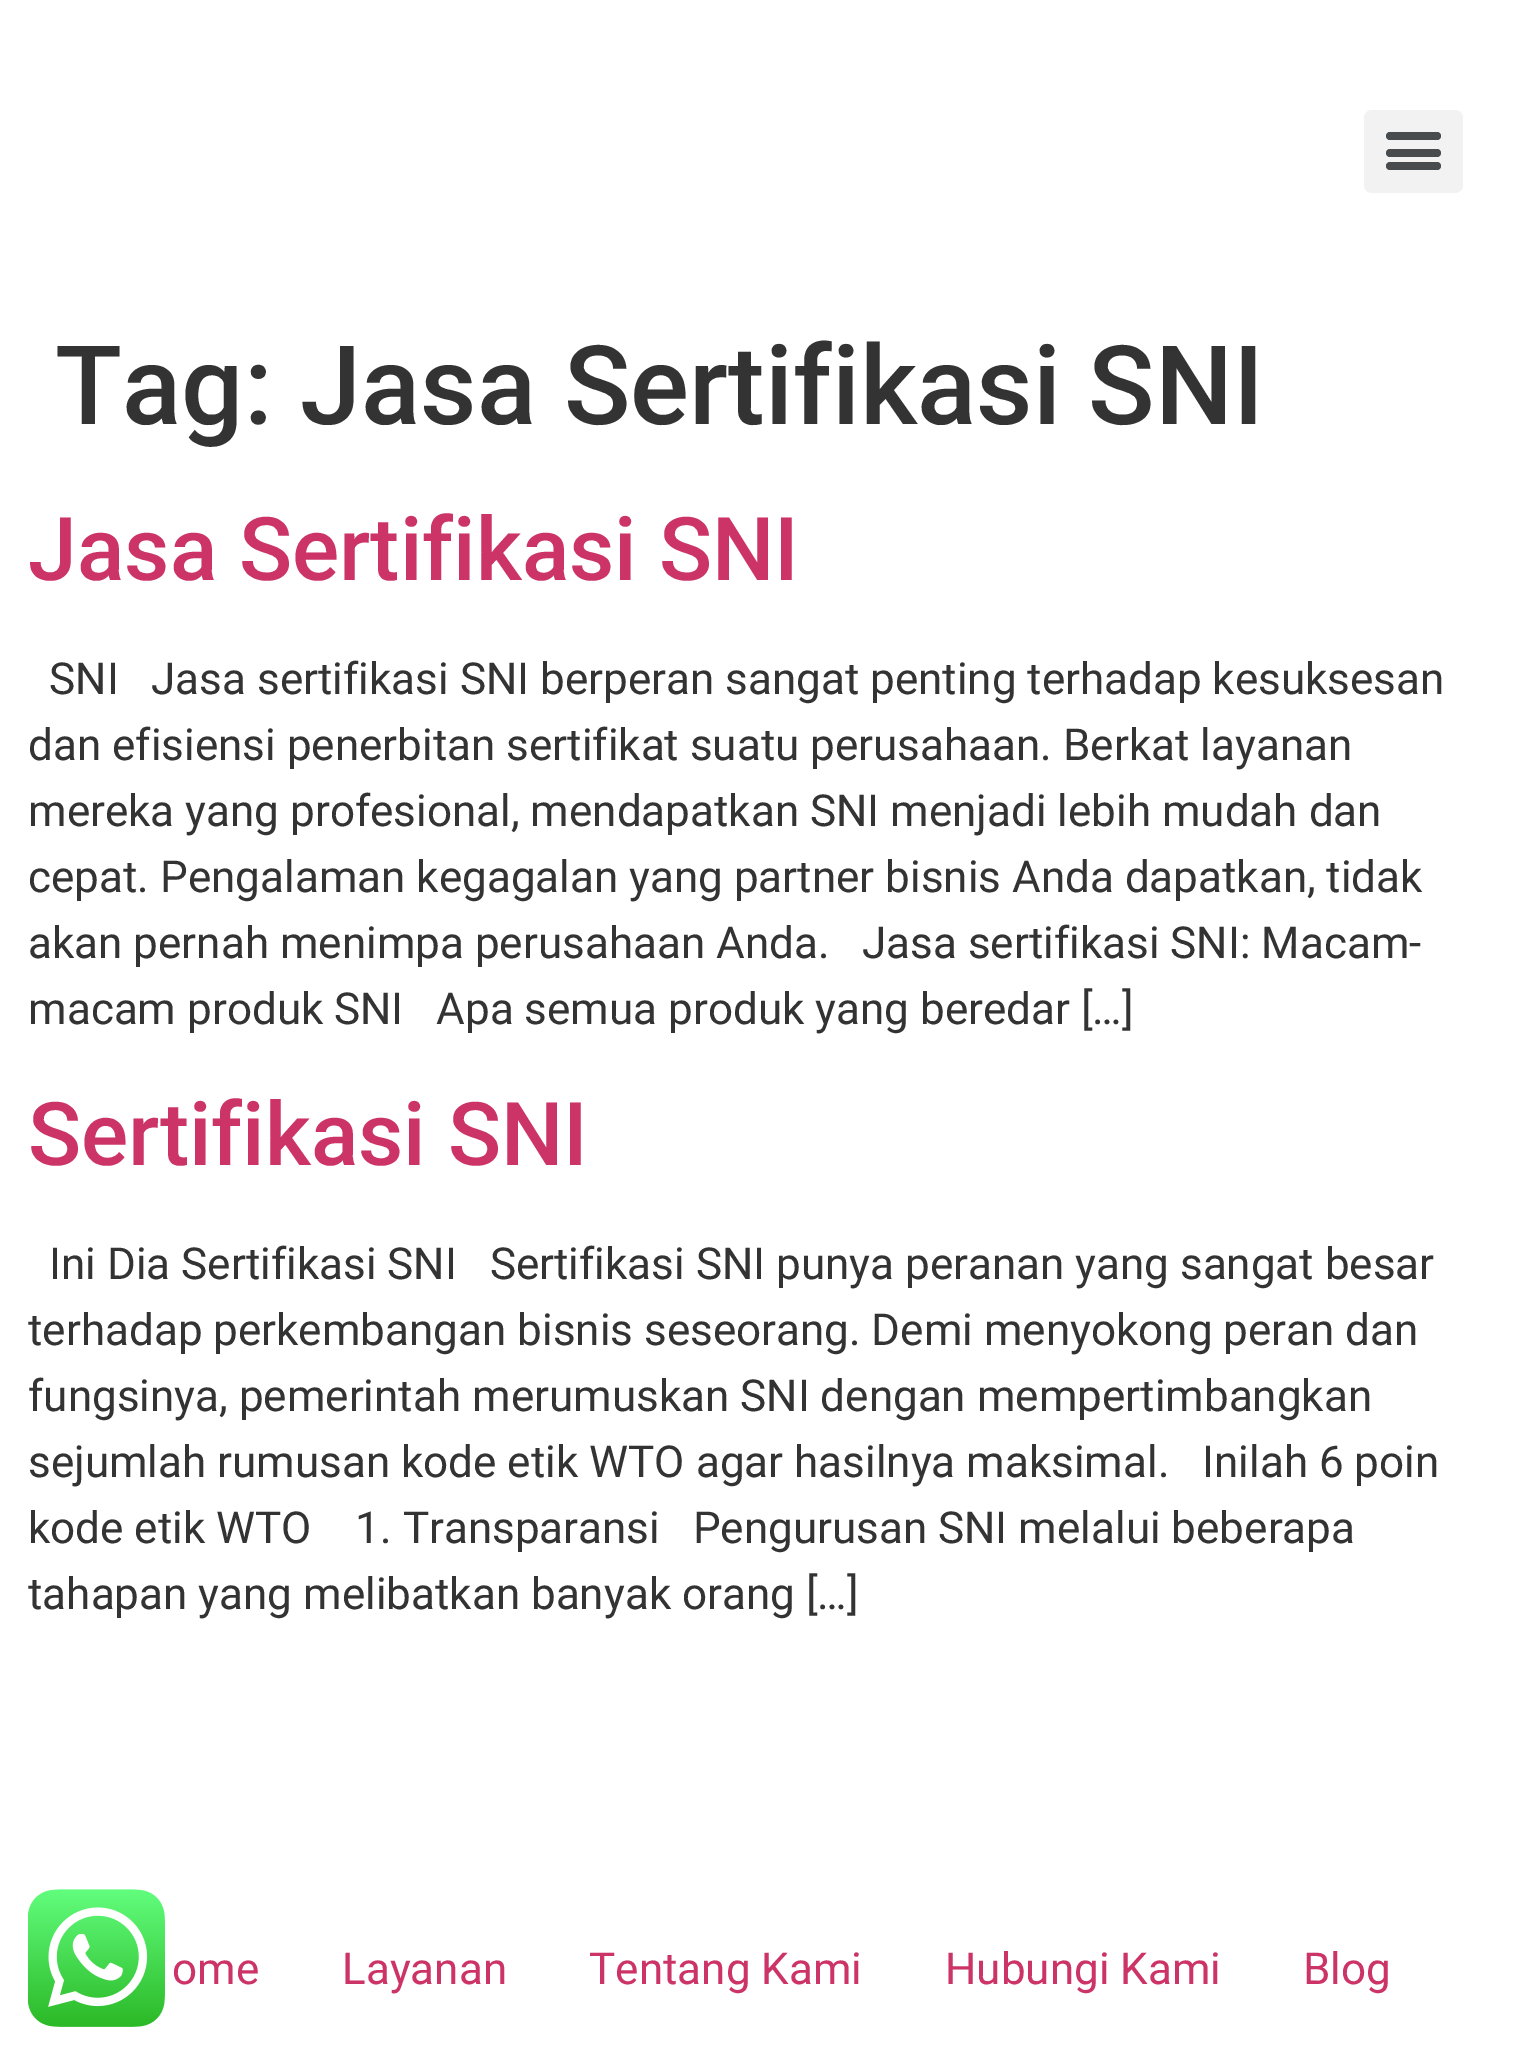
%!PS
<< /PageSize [1530 2054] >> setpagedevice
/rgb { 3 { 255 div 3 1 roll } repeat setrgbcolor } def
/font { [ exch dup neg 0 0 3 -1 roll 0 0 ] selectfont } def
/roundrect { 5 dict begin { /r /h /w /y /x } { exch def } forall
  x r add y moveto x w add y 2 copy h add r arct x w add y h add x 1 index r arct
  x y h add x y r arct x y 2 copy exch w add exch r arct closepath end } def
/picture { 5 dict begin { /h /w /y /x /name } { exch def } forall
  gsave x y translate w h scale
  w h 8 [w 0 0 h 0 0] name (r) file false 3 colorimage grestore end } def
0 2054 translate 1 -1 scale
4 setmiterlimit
255 255 255 rgb
0 0 1530 2054 rectfill
242 242 242 rgb
1364 110 99 83 8 roundrect fill
73 76 79 rgb
1386 149 55 8 4 roundrect fill
1386 132 55 8 4 roundrect fill
1386 162 55 8 4 roundrect fill
(img/1.rgb) 28 1889 137 138 picture
/Roboto-Medium 110 font
51 51 51 rgb
55 424 moveto (Tag: Jasa Sertifikasi SNI) show
/Roboto-Medium 88 font
204 51 102 rgb
28 580 moveto (Jasa Sertifikasi SNI) show
/Roboto-Regular 44 font
51 51 51 rgb
[
  [(SNI   Jasa sertifikasi SNI berperan sangat penting terhadap kesuksesan) 49 694]
  [(dan efisiensi penerbitan sertifikat suatu perusahaan. Berkat layanan) 28 760]
  [(mereka yang profesional, mendapatkan SNI menjadi lebih mudah dan) 28 826]
  [(cepat. Pengalaman kegagalan yang partner bisnis Anda dapatkan, tidak) 28 892]
  [(akan pernah menimpa perusahaan Anda.   Jasa sertifikasi SNI: Macam-) 28 958]
  [(macam produk SNI   Apa semua produk yang beredar […]) 28 1024]
] { aload pop moveto show } forall
/Roboto-Medium 88 font
204 51 102 rgb
28 1165 moveto (Sertifikasi SNI) show
/Roboto-Regular 44 font
51 51 51 rgb
[
  [(Ini Dia Sertifikasi SNI   Sertifikasi SNI punya peranan yang sangat besar) 49 1279]
  [(terhadap perkembangan bisnis seseorang. Demi menyokong peran dan) 28 1345]
  [(fungsinya, pemerintah merumuskan SNI dengan mempertimbangkan) 28 1411]
  [(sejumlah rumusan kode etik WTO agar hasilnya maksimal.   Inilah 6 poin) 28 1477]
  [(kode etik WTO    1. Transparansi   Pengurusan SNI melalui beberapa) 28 1543]
  [(tahapan yang melibatkan banyak orang […]) 28 1609]
] { aload pop moveto show } forall
204 51 102 rgb
[
  [(ome) 172 1984]
  [(Layanan) 342 1984]
  [(Tentang Kami) 589 1984]
  [(Hubungi Kami) 945 1984]
  [(Blog) 1303 1984]
] { aload pop moveto show } forall
showpage
